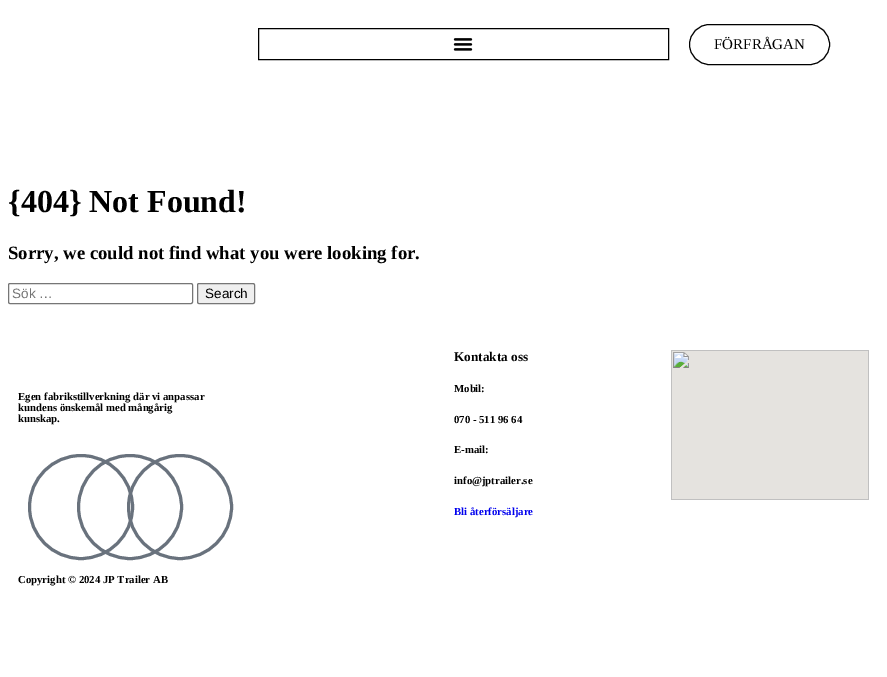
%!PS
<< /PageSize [887 677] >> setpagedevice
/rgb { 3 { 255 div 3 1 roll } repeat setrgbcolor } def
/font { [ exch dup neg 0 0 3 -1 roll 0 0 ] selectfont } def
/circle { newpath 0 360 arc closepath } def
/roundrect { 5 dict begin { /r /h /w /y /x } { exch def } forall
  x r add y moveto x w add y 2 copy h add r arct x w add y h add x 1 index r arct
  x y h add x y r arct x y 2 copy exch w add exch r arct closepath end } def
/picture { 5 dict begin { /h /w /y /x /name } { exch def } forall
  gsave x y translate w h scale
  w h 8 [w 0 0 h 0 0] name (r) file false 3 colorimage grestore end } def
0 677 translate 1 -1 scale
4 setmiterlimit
255 255 255 rgb
0 0 887 677 rectfill
0 0 0 rgb
258.5 28.5 410 31 rectstroke
(img/1.rgb) 453 38 20 13 picture
689.5 24.5 140 40 20 roundrect stroke
118 118 118 rgb
8.5 283.5 184 20 1.5 roundrect stroke
239 239 239 rgb
197.5 283.5 57 20 1.5 roundrect gsave fill grestore
118 118 118 rgb
stroke
105 114 125 rgb
3 setlinewidth
81 507 51.5 circle stroke
130 507 51.5 circle stroke
180 507 51.5 circle stroke
(img/2.rgb) 671 350 198 150 picture
/LiberationSerif-Regular 15 font
0 0 0 rgb
714 49 moveto (FÖRFRÅGAN) show
/LiberationSerif-Bold 32 font
8 212 moveto ({404} Not Found!) show
/LiberationSerif-Bold 18.75 font
8 259 moveto (Sorry, we could not find what you were looking for.) show
/LiberationSans-Regular 13.5 font
117 117 117 rgb
12 298 moveto (Sök …) show
0 0 0 rgb
205 298 moveto (Search) show
/LiberationSerif-Bold 10.75 font
[
  [(Egen fabrikstillverkning där vi anpassar) 18 400]
  [(kundens önskemål med mångårig) 18 411]
  [(kunskap.) 18 422]
  [(Copyright © 2024 JP Trailer AB) 18 583]
] { aload pop moveto show } forall
/LiberationSerif-Bold 13.25 font
454 361 moveto (Kontakta oss) show
/LiberationSerif-Bold 10.75 font
[
  [(Mobil:) 454 392]
  [(070 - 511 96 64) 454 423]
  [(E-mail:) 454 453]
  [(info@jptrailer.se) 454 484]
] { aload pop moveto show } forall
0 0 238 rgb
454 515 moveto (Bli återförsäljare) show
showpage
